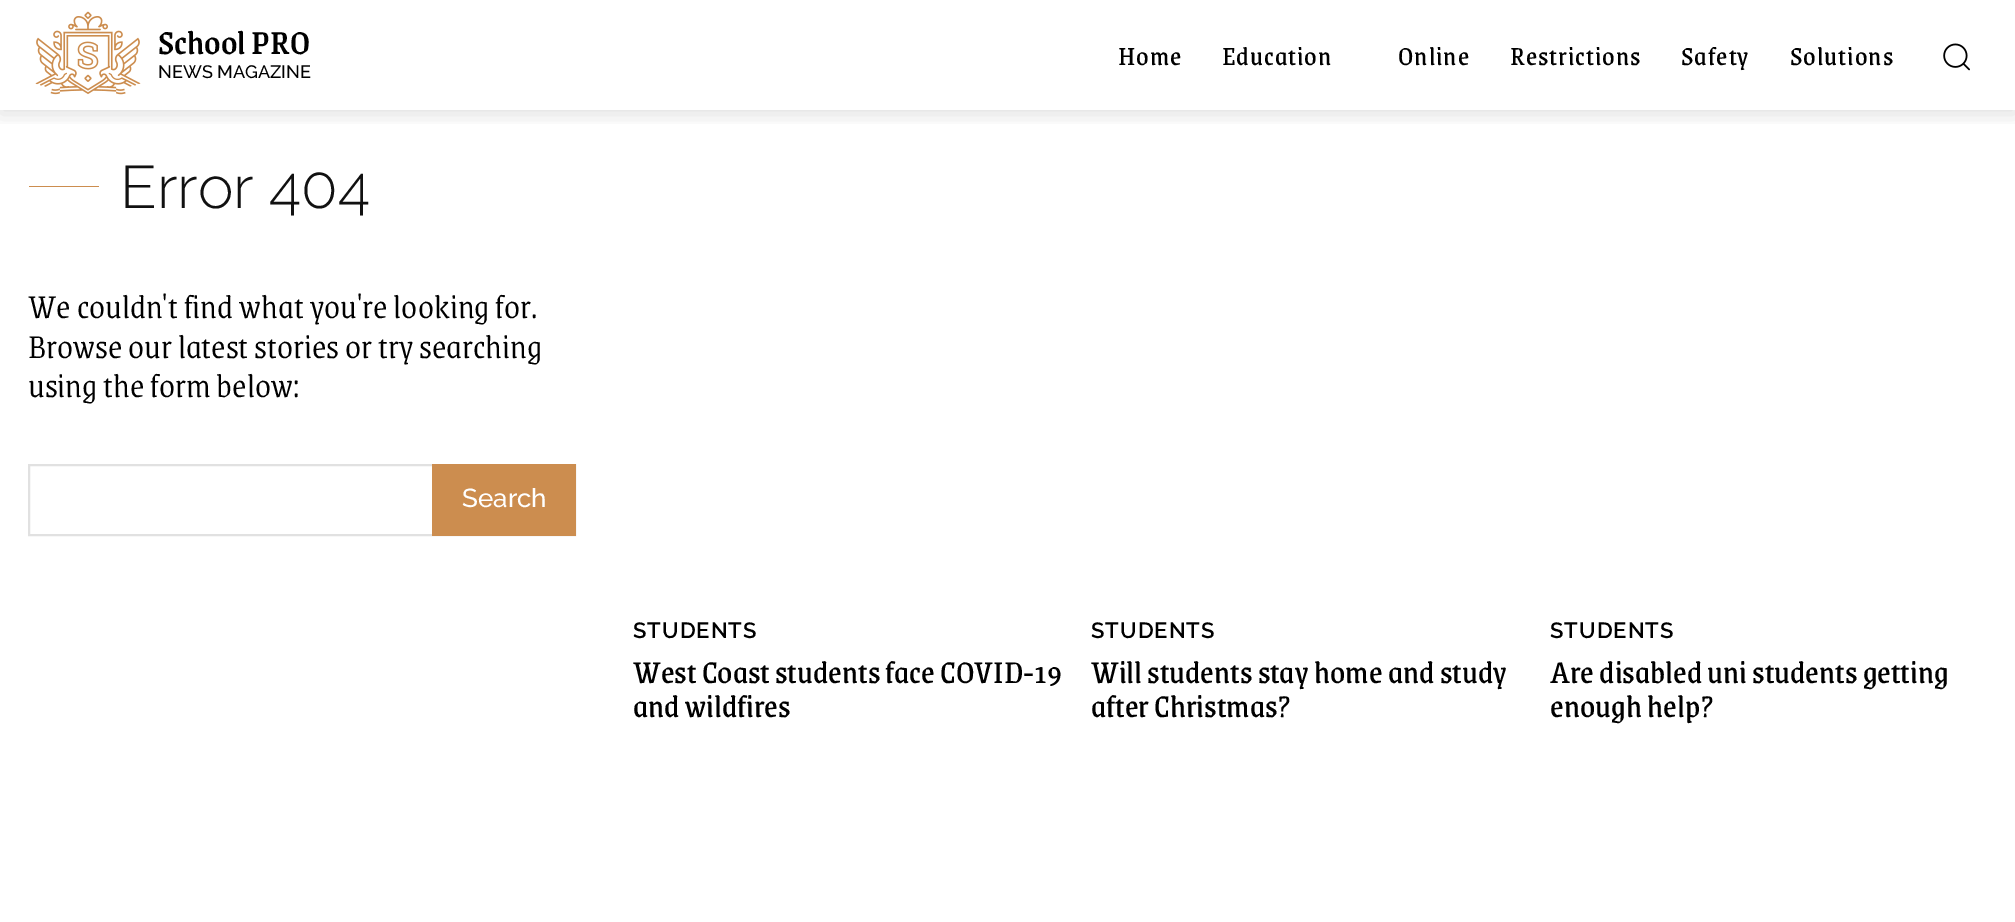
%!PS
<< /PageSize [2015 922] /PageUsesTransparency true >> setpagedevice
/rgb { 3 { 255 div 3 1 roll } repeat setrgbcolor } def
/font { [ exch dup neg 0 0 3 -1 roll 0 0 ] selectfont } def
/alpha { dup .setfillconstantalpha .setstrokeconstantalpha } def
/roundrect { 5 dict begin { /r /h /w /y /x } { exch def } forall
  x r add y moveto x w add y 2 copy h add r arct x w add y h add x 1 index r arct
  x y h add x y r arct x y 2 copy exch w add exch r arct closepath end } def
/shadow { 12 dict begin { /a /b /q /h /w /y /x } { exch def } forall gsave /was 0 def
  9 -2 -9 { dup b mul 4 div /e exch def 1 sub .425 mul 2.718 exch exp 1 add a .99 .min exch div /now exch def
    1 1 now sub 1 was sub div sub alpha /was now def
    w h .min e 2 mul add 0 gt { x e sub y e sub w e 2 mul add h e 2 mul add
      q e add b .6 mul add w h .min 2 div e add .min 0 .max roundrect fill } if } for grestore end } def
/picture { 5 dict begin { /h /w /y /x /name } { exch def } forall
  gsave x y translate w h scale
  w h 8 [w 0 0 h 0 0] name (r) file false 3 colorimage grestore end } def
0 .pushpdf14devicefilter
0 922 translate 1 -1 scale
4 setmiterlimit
255 255 255 rgb
0 0 2015 922 rectfill
(img/1.rgb) 35 11 106 84 picture
gsave
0 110 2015 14 rectclip
0 0 0 rgb
0 4 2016 110 0 10 0.12 shadow
grestore
(img/2.rgb) 1943 43 27 28 picture
204 141 79 rgb
29 186 70 1 rectfill
225 225 225 rgb
2 setlinewidth
29 465 546 70 rectstroke
204 141 79 rgb
432 464 144 72 rectfill
/Grenze-Medium 36 font
0 0 0 rgb
158 54 moveto (School PRO) show
/Raleway-Medium 18 font
158 78 moveto (NEWS MAGAZINE) show
/Grenze-Regular 28 font
1118 65 moveto 1 0 (Home) ashow
1222 65 moveto 1 0 (Education) ashow
1398 65 moveto 1 0 (Online) ashow
1510 65 moveto 1 0 (Restrictions) ashow
1681 65 moveto 1 0 (Safety) ashow
1790 65 moveto 1 0 (Solutions) ashow
/Raleway-Light 60 font
17 17 17 rgb
120 208 moveto (Error 404) show
/Grenze-Light 36 font
0 0 0 rgb
[
  [(We couldn't find what you're looking for.) 28 318]
  [(Browse our latest stories or try searching) 28 358]
  [(using the form below:) 28 397]
] { aload pop moveto show } forall
/Raleway-Medium 26 font
255 255 255 rgb
462 507 moveto (Search) show
/Raleway-SemiBold 22 font
0 0 0 rgb
633 638 moveto 1 0 (STUDENTS) ashow
/Grenze-Regular 34 font
633 683 moveto (West Coast students face COVID-19) show
633 717 moveto (and wildfires) show
/Raleway-SemiBold 22 font
1091 638 moveto 1 0 (STUDENTS) ashow
/Grenze-Regular 34 font
1091 683 moveto (Will students stay home and study) show
1091 717 moveto (after Christmas?) show
/Raleway-SemiBold 22 font
1550 638 moveto 1 0 (STUDENTS) ashow
/Grenze-Regular 34 font
1550 683 moveto (Are disabled uni students getting) show
1550 717 moveto (enough help?) show
.poppdf14devicefilter showpage
